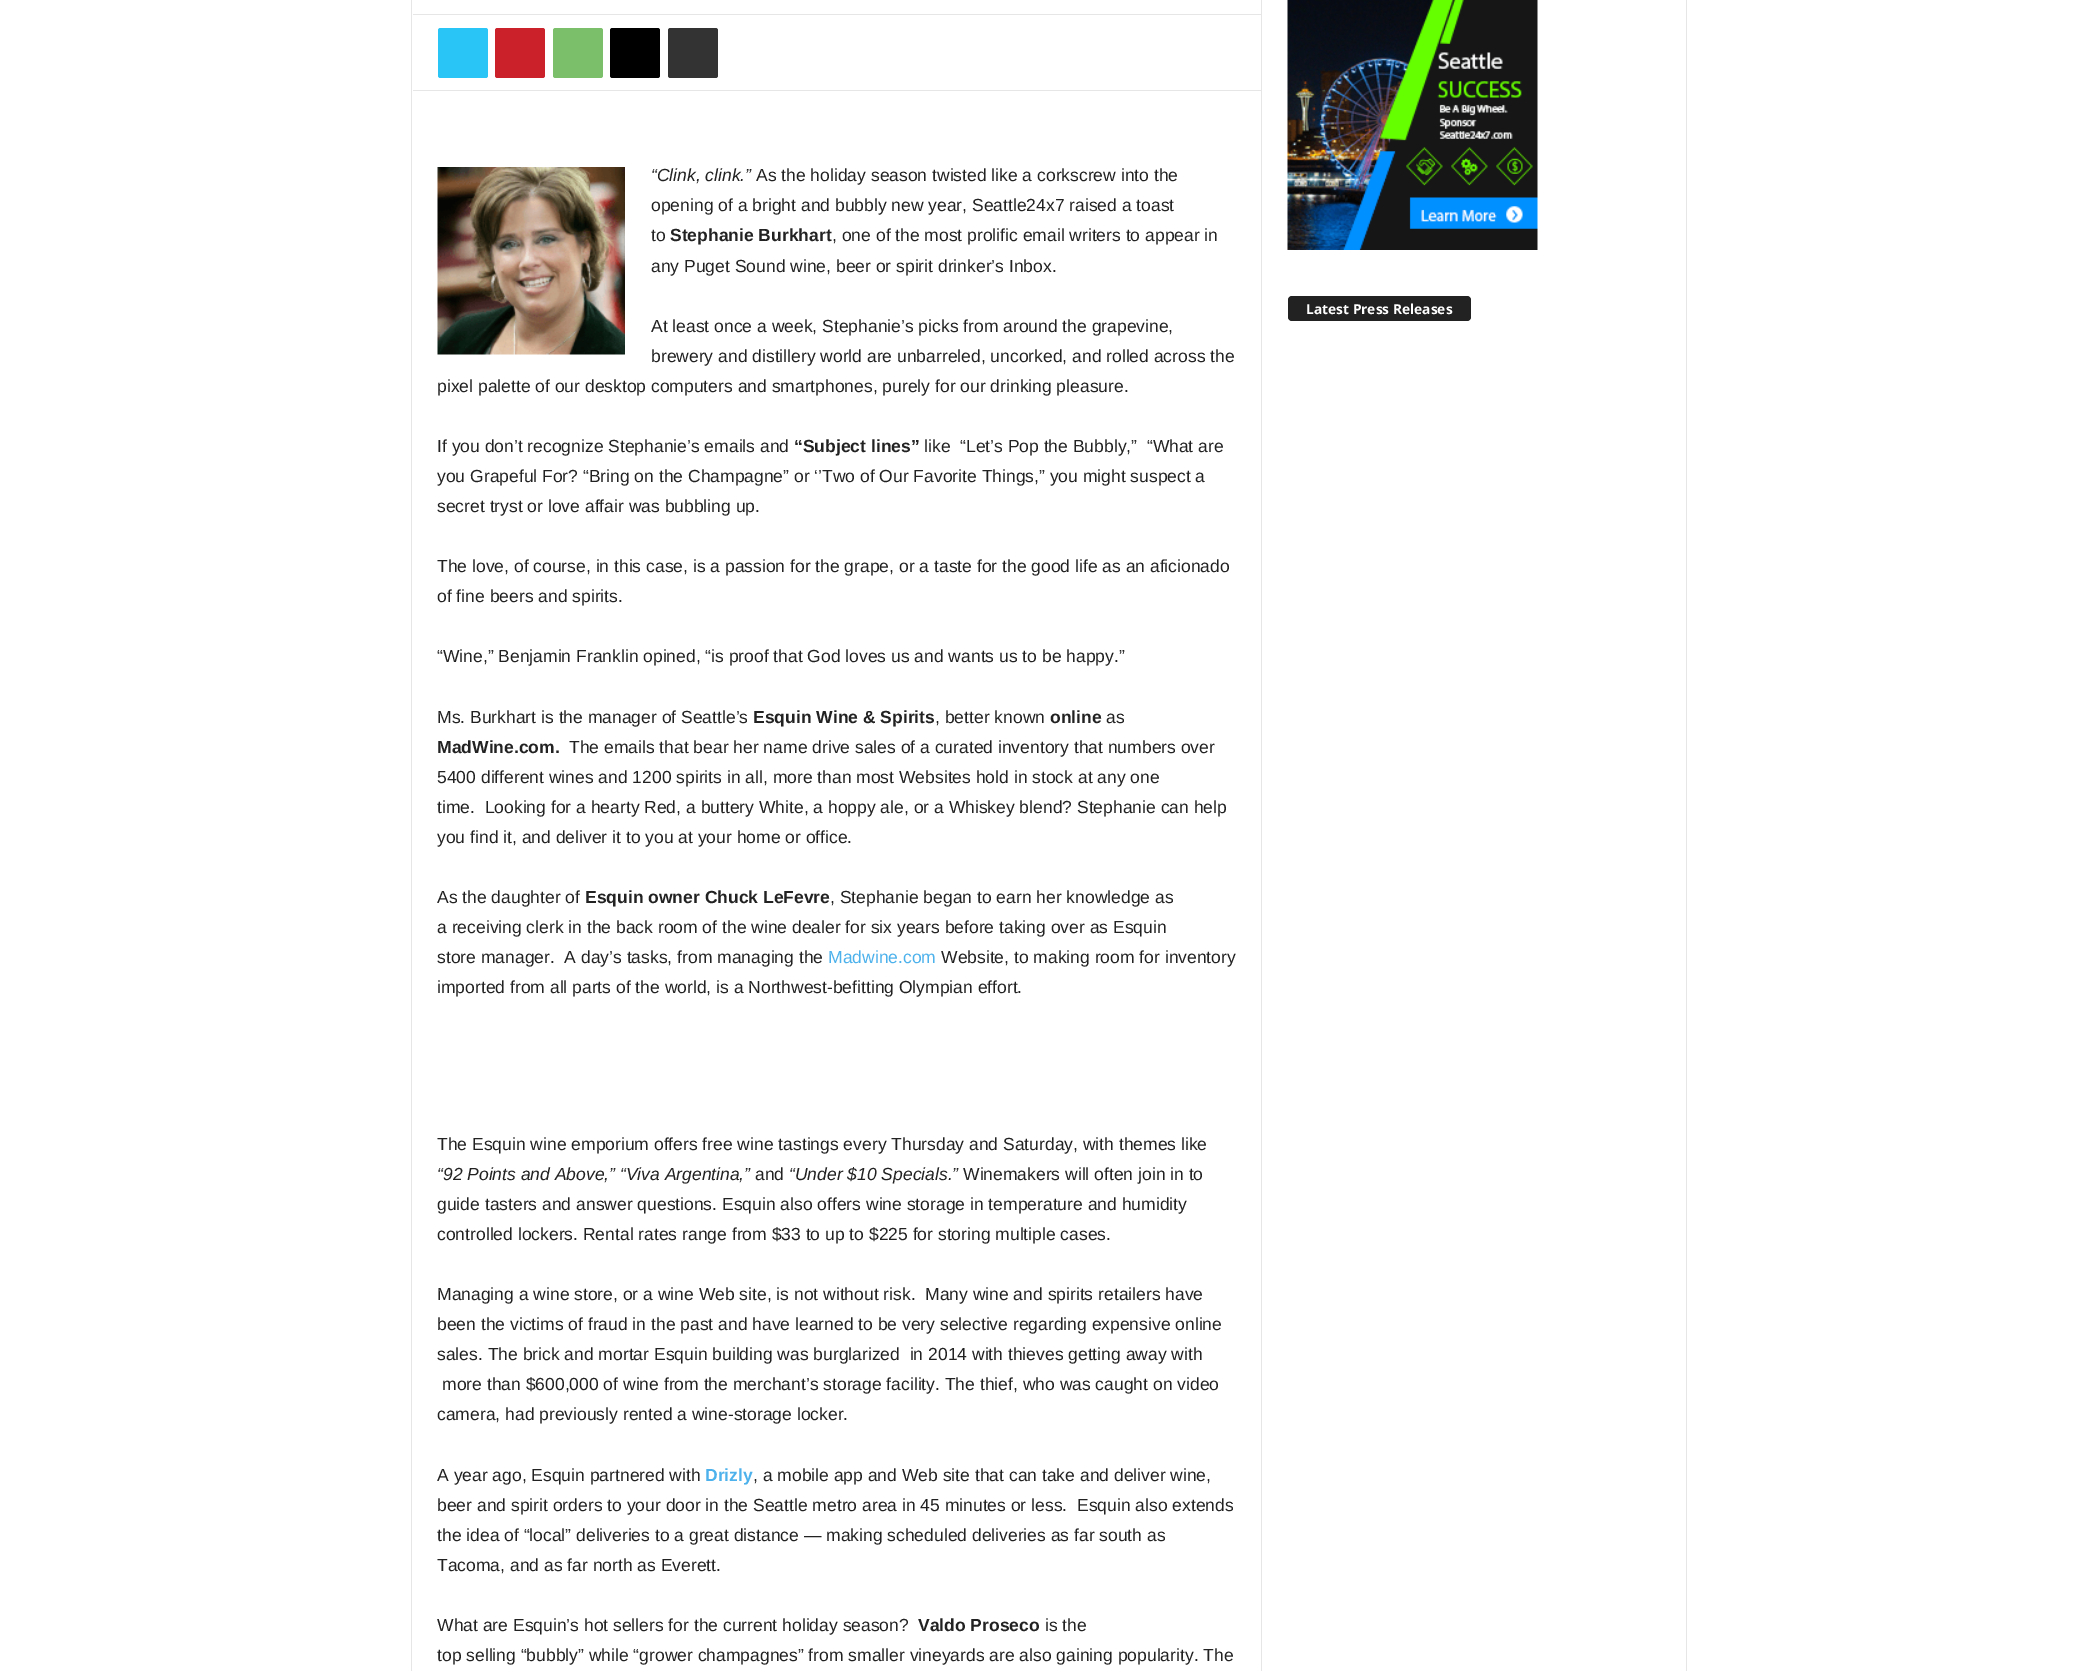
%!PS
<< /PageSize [2097 1671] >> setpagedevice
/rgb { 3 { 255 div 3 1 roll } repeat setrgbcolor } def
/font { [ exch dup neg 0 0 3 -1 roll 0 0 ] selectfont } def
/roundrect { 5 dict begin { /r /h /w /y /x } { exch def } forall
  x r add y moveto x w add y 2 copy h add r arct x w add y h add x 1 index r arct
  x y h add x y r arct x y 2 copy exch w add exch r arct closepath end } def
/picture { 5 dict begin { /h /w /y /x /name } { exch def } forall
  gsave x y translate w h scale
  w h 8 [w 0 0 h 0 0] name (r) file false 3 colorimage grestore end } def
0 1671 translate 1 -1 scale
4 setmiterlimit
255 255 255 rgb
0 0 2097 1671 rectfill
230 230 230 rgb
411 0 1 1671 rectfill
413 14 848 1 rectfill
41 197 246 rgb
438 28 50 50 2.5 roundrect fill
202 33 42 rgb
495 28 50 50 2.5 roundrect fill
123 191 106 rgb
553 28 50 50 2.5 roundrect fill
0 0 0 rgb
610 28 50 50 2.5 roundrect fill
51 51 51 rgb
668 28 50 50 2.5 roundrect fill
230 230 230 rgb
413 90 848 1 rectfill
(img/1.rgb) 437 167 188 188 picture
1261 0 1 1671 rectfill
(img/2.rgb) 1287 0 251 250 picture
34 34 34 rgb
1288 296 183 25 4 roundrect fill
230 230 230 rgb
1686 0 1 1671 rectfill
/LiberationSans-Italic 17.5 font
34 34 34 rgb
651 181 moveto (“Clink, clink.”) show
/LiberationSans-Regular 17.5 font
[
  [(As the holiday season twisted like a corkscrew into the) 756 181]
  [(opening of a bright and bubbly new year, Seattle24x7 raised a toast) 651 211]
  [(to) 651 241]
] { aload pop moveto show } forall
/LiberationSans-Bold 17.5 font
670 241 moveto (Stephanie Burkhart) show
/LiberationSans-Regular 17.5 font
[
  [(, one of the most prolific email writers to appear in) 832 241]
  [(any Puget Sound wine, beer or spirit drinker’s Inbox.) 651 272]
  [(At least once a week, Stephanie’s picks from around the grapevine,) 651 332]
  [(brewery and distillery world are unbarreled, uncorked, and rolled across the) 651 362]
  [(pixel palette of our desktop computers and smartphones, purely for our drinking pleasure.) 437 392]
  [(If you don’t recognize Stephanie’s emails and) 437 452]
] { aload pop moveto show } forall
/LiberationSans-Bold 17.5 font
794 452 moveto (“Subject lines”) show
/LiberationSans-Regular 17.5 font
[
  [(like  “Let’s Pop the Bubbly,”  “What are) 924 452]
  [(you Grapeful For? “Bring on the Champagne” or ‘’Two of Our Favorite Things,” you might suspect a) 437 482]
  [(secret tryst or love affair was bubbling up.) 437 512]
  [(The love, of course, in this case, is a passion for the grape, or a taste for the good life as an aficionado) 437 572]
  [(of fine beers and spirits.) 437 602]
  [(“Wine,” Benjamin Franklin opined, “is proof that God loves us and wants us to be happy.”) 437 662]
  [(Ms. Burkhart is the manager of Seattle’s) 437 723]
] { aload pop moveto show } forall
/LiberationSans-Bold 17.5 font
753 723 moveto (Esquin Wine & Spirits) show
/LiberationSans-Regular 17.5 font
935 723 moveto (, better known) show
/LiberationSans-Bold 17.5 font
1050 723 moveto (online) show
/LiberationSans-Regular 17.5 font
1106 723 moveto (as) show
/LiberationSans-Bold 17.5 font
437 753 moveto (MadWine.com.) show
/LiberationSans-Regular 17.5 font
[
  [(The emails that bear her name drive sales of a curated inventory that numbers over) 569 753]
  [(5400 different wines and 1200 spirits in all, more than most Websites hold in stock at any one) 437 783]
  [(time.  Looking for a hearty Red, a buttery White, a hoppy ale, or a Whiskey blend? Stephanie can help) 437 813]
  [(you find it, and deliver it to you at your home or office.) 437 843]
  [(As the daughter of) 437 903]
] { aload pop moveto show } forall
/LiberationSans-Bold 17.5 font
585 903 moveto (Esquin owner Chuck LeFevre) show
/LiberationSans-Regular 17.5 font
[
  [(, Stephanie began to earn her knowledge as) 830 903]
  [(a receiving clerk in the back room of the wine dealer for six years before taking over as Esquin) 437 933]
  [(store manager.  A day’s tasks, from managing the) 437 963]
] { aload pop moveto show } forall
77 178 236 rgb
828 963 moveto (Madwine.com) show
34 34 34 rgb
[
  [(Website, to making room for inventory) 941 963]
  [(imported from all parts of the world, is a Northwest-befitting Olympian effort.) 437 993]
  [(The Esquin wine emporium offers free wine tastings every Thursday and Saturday, with themes like) 437 1150]
] { aload pop moveto show } forall
/LiberationSans-Italic 17.5 font
437 1180 moveto (“92 Points and Above,” “Viva Argentina,”) show
/LiberationSans-Regular 17.5 font
755 1180 moveto (and) show
/LiberationSans-Italic 17.5 font
789 1180 moveto (“Under $10 Specials.”) show
/LiberationSans-Regular 17.5 font
[
  [(Winemakers will often join in to) 963 1180]
  [(guide tasters and answer questions. Esquin also offers wine storage in temperature and humidity) 437 1210]
  [(controlled lockers. Rental rates range from $33 to up to $225 for storing multiple cases.) 437 1240]
  [(Managing a wine store, or a wine Web site, is not without risk.) 437 1300]
  [(Many wine and spirits retailers have) 925 1300]
  [(been the victims of fraud in the past and have learned to be very selective regarding expensive online) 437 1330]
  [(sales. The brick and mortar Esquin building was burglarized  in 2014 with thieves getting away with) 437 1360]
  [(more than $600,000 of wine from the merchant’s storage facility. The thief, who was caught on video) 442 1390]
  [(camera, had previously rented a wine-storage locker.) 437 1420]
  [(A year ago, Esquin partnered with) 437 1481]
] { aload pop moveto show } forall
/LiberationSans-Bold 17.5 font
77 178 236 rgb
705 1481 moveto (Drizly) show
/LiberationSans-Regular 17.5 font
34 34 34 rgb
[
  [(, a mobile app and Web site that can take and deliver wine,) 753 1481]
  [(beer and spirit orders to your door in the Seattle metro area in 45 minutes or less.  Esquin also extends) 437 1511]
  [(the idea of “local” deliveries to a great distance — making scheduled deliveries as far south as) 437 1541]
  [(Tacoma, and as far north as Everett.) 437 1571]
  [(What are Esquin’s hot sellers for the current holiday season?) 437 1631]
] { aload pop moveto show } forall
/LiberationSans-Bold 17.5 font
918 1631 moveto (Valdo Proseco) show
/LiberationSans-Regular 17.5 font
1045 1631 moveto (is the) show
437 1661 moveto (top selling “bubbly” while “grower champagnes” from smaller vineyards are also gaining popularity. The) show
/OpenSans-Bold 13.75 font
255 255 255 rgb
1306 314 moveto (Latest Press Releases) show
showpage
